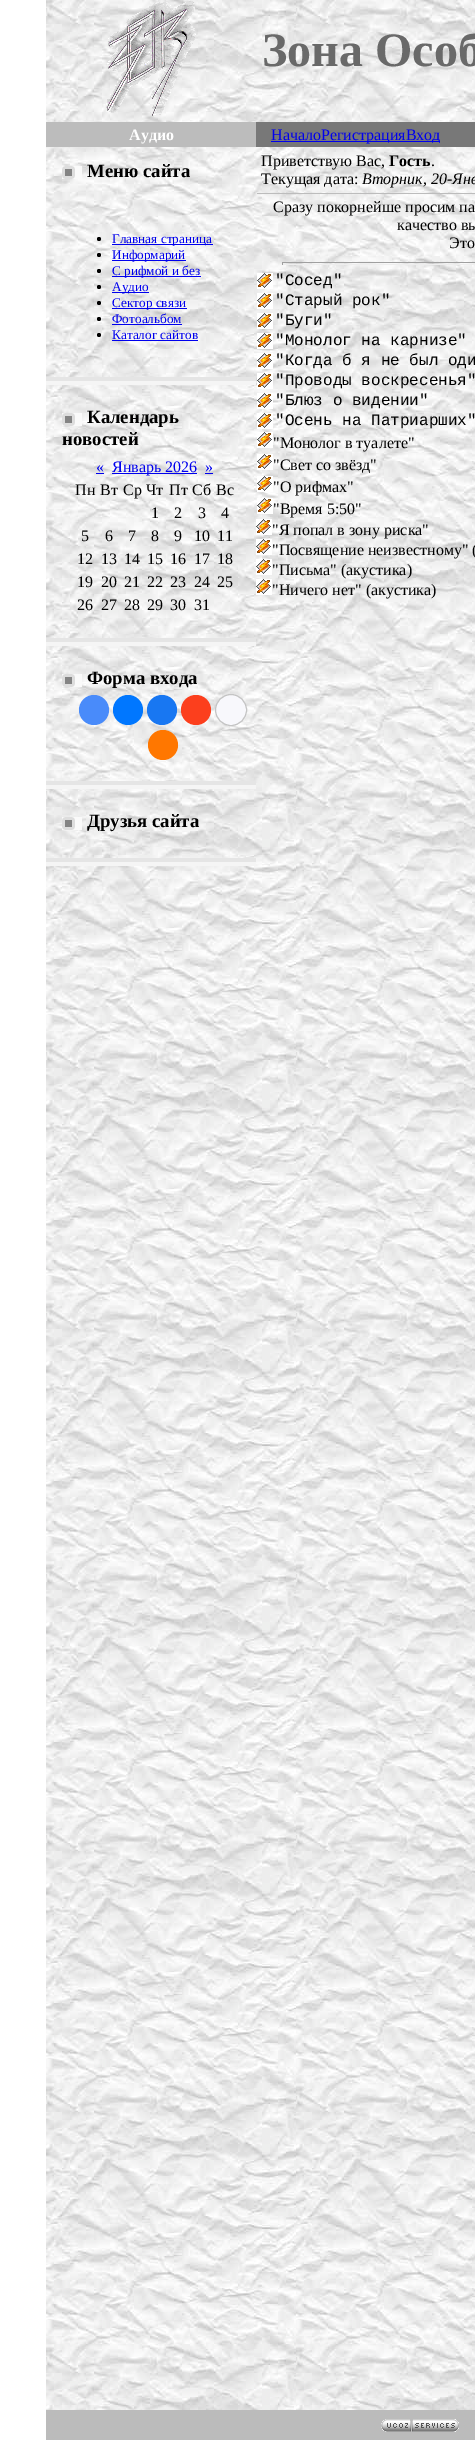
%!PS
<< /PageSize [475 2440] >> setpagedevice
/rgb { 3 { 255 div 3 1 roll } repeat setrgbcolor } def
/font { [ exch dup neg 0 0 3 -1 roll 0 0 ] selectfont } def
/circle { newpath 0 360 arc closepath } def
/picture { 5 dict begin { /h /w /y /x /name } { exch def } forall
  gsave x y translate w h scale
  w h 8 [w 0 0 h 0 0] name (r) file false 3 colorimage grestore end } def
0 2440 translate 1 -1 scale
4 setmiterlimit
255 255 255 rgb
0 0 475 2440 rectfill
(img/1.rgb) 46 0 429 2410 picture
(img/2.rgb) 106 1 90 116 picture
[
  [46 122 210 25 188 188 188]
  [256 122 219 25 120 120 120]
  [271 141 169 1 0 0 238]
] { aload pop rgb rectfill } forall
(img/3.rgb) 62 166 20 13 picture
0 0 0 rgb
99 239 2 circle fill
0 0 238 rgb
112 244 101 1 rectfill
0 0 0 rgb
99 255 2 circle fill
0 0 238 rgb
112 260 74 1 rectfill
0 0 0 rgb
99 271 2 circle fill
0 0 238 rgb
112 276 89 1 rectfill
0 0 0 rgb
99 287 2 circle fill
0 0 238 rgb
112 292 37 1 rectfill
0 0 0 rgb
99 303 2 circle fill
0 0 238 rgb
112 308 75 1 rectfill
0 0 0 rgb
99 319 2 circle fill
0 0 238 rgb
112 324 70 1 rectfill
0 0 0 rgb
99 335 2 circle fill
[
  [112 340 86 1 0 0 238]
  [46 377 210 4 229 229 229]
  [46 381 210 4 245 245 245]
] { aload pop rgb rectfill } forall
(img/3.rgb) 62 413 20 13 picture
[
  [96 473 8 1 0 0 238]
  [112 473 85 1 0 0 238]
  [205 473 8 1 0 0 238]
  [46 638 210 4 229 229 229]
  [46 642 210 4 245 245 245]
] { aload pop rgb rectfill } forall
(img/3.rgb) 62 674 20 13 picture
73 139 250 rgb
94 710 15 circle fill
0 119 255 rgb
128 710 15 circle fill
24 119 242 rgb
162 710 15 circle fill
252 63 29 rgb
196 710 15 circle fill
248 248 252 rgb
231 710 15.5 circle gsave fill grestore
196 196 196 rgb
stroke
255 119 0 rgb
163 745 15 circle fill
229 229 229 rgb
46 781 210 4 rectfill
245 245 245 rgb
46 785 210 4 rectfill
(img/3.rgb) 62 817 20 13 picture
[
  [46 858 210 4 229 229 229]
  [46 862 210 4 245 245 245]
  [257 193 218 1 188 188 188]
  [282 262 193 1 159 159 159]
  [282 264 193 1 238 238 238]
  [282 262 1 3 159 159 159]
] { aload pop rgb rectfill } forall
(img/4.rgb) 257 273 16 16 picture
(img/4.rgb) 257 293 16 16 picture
(img/4.rgb) 257 313 16 16 picture
(img/4.rgb) 257 333 16 16 picture
(img/4.rgb) 257 353 16 16 picture
(img/4.rgb) 257 373 16 16 picture
(img/4.rgb) 257 393 16 16 picture
(img/4.rgb) 257 413 16 16 picture
(img/4.rgb) 257 432 16 16 picture
(img/4.rgb) 257 454 16 16 picture
(img/4.rgb) 257 476 16 16 picture
(img/4.rgb) 257 498 16 16 picture
(img/4.rgb) 256 519 16 16 picture
(img/4.rgb) 256 539 16 16 picture
(img/4.rgb) 256 559 16 16 picture
(img/4.rgb) 256 579 16 16 picture
187 187 187 rgb
46 2410 429 30 rectfill
(img/5.rgb) 381 2419 78 13 picture
/LiberationSerif-Bold 48 font
105 105 105 rgb
262 66 moveto (Зона Особ) show
/LiberationSerif-Bold 16 font
255 255 255 rgb
129 140 moveto (Аудио) show
/LiberationSerif-Regular 16 font
0 0 238 rgb
271 140 moveto (НачалоРегистрацияВход) show
/LiberationSerif-Bold 18.75 font
0 0 0 rgb
87 177 moveto (Меню сайта) show
/LiberationSerif-Regular 13.25 font
0 0 238 rgb
[
  [(Главная страница) 112 243]
  [(Информарий) 112 259]
  [(С рифмой и без) 112 275]
  [(Аудио) 112 291]
  [(Сектор связи) 112 307]
  [(Фотоальбом) 112 323]
  [(Каталог сайтов) 112 339]
] { aload pop moveto show } forall
/LiberationSerif-Bold 18.75 font
0 0 0 rgb
87 423 moveto (Календарь) show
62 445 moveto (новостей) show
/LiberationSerif-Regular 16 font
0 0 238 rgb
[
  [(«) 96 472]
  [(Январь 2026) 112 472]
  [(») 205 472]
] { aload pop moveto show } forall
0 0 0 rgb
[
  [(Пн) 75 495]
  [(Вт) 100 495]
  [(Ср) 123 495]
  [(Чт) 146 495]
  [(Пт) 169 495]
  [(Сб) 192 495]
  [(Вс) 216 495]
  [(1) 151 518]
  [(2) 174 518]
  [(3) 198 518]
  [(4) 221 518]
  [(5) 81 541]
  [(6) 105 541]
  [(7) 128 541]
  [(8) 151 541]
  [(9) 174 541]
  [(10) 194 541]
  [(11) 217 541]
  [(12) 77 564]
  [(13) 101 564]
  [(14) 124 564]
  [(15) 147 564]
  [(16) 170 564]
  [(17) 194 564]
  [(18) 217 564]
  [(19) 77 587]
  [(20) 101 587]
  [(21) 124 587]
  [(22) 147 587]
  [(23) 170 587]
  [(24) 194 587]
  [(25) 217 587]
  [(26) 77 610]
  [(27) 101 610]
  [(28) 124 610]
  [(29) 147 610]
  [(30) 170 610]
  [(31) 194 610]
] { aload pop moveto show } forall
/LiberationSerif-Bold 18.75 font
87 684 moveto (Форма входа) show
87 827 moveto (Друзья сайта) show
/LiberationSerif-Regular 16 font
261 166 moveto (Приветствую Вас,) show
/LiberationSerif-Bold 16 font
389 166 moveto (Гость) show
/LiberationSerif-Regular 16 font
431 166 moveto (.) show
261 184 moveto (Текущая дата:) show
/LiberationSerif-Italic 16 font
362 184 moveto (Вторник, 20-Янв) show
/LiberationSerif-Regular 16 font
[
  [(Сразу покорнейше просим па) 273 212]
  [(качество вы) 397 230]
  [(Это) 449 248]
] { aload pop moveto show } forall
/LiberationMono-Regular 16 font
[
  [("Сосед") 275 285]
  [("Старый рок") 275 305]
  [("Буги") 275 325]
  [("Монолог на карнизе") 275 345]
  [("Когда б я не был оди) 275 365]
  [("Проводы воскресенья") 275 385]
  [("Блюз о видении") 275 405]
  [("Осень на Патриарших") 275 425]
] { aload pop moveto show } forall
/LiberationSerif-Regular 16 font
[
  [("Монолог в туалете") 273 448]
  [("Свет со звёзд") 273 470]
  [("О рифмах") 273 492]
  [("Время 5:50") 273 514]
  [("Я попал в зону риска") 272 535]
  [("Посвящение неизвестному" \() 272 555]
  [("Письма" \(акустика\)) 272 575]
  [("Ничего нет" \(акустика\)) 272 595]
] { aload pop moveto show } forall
showpage
